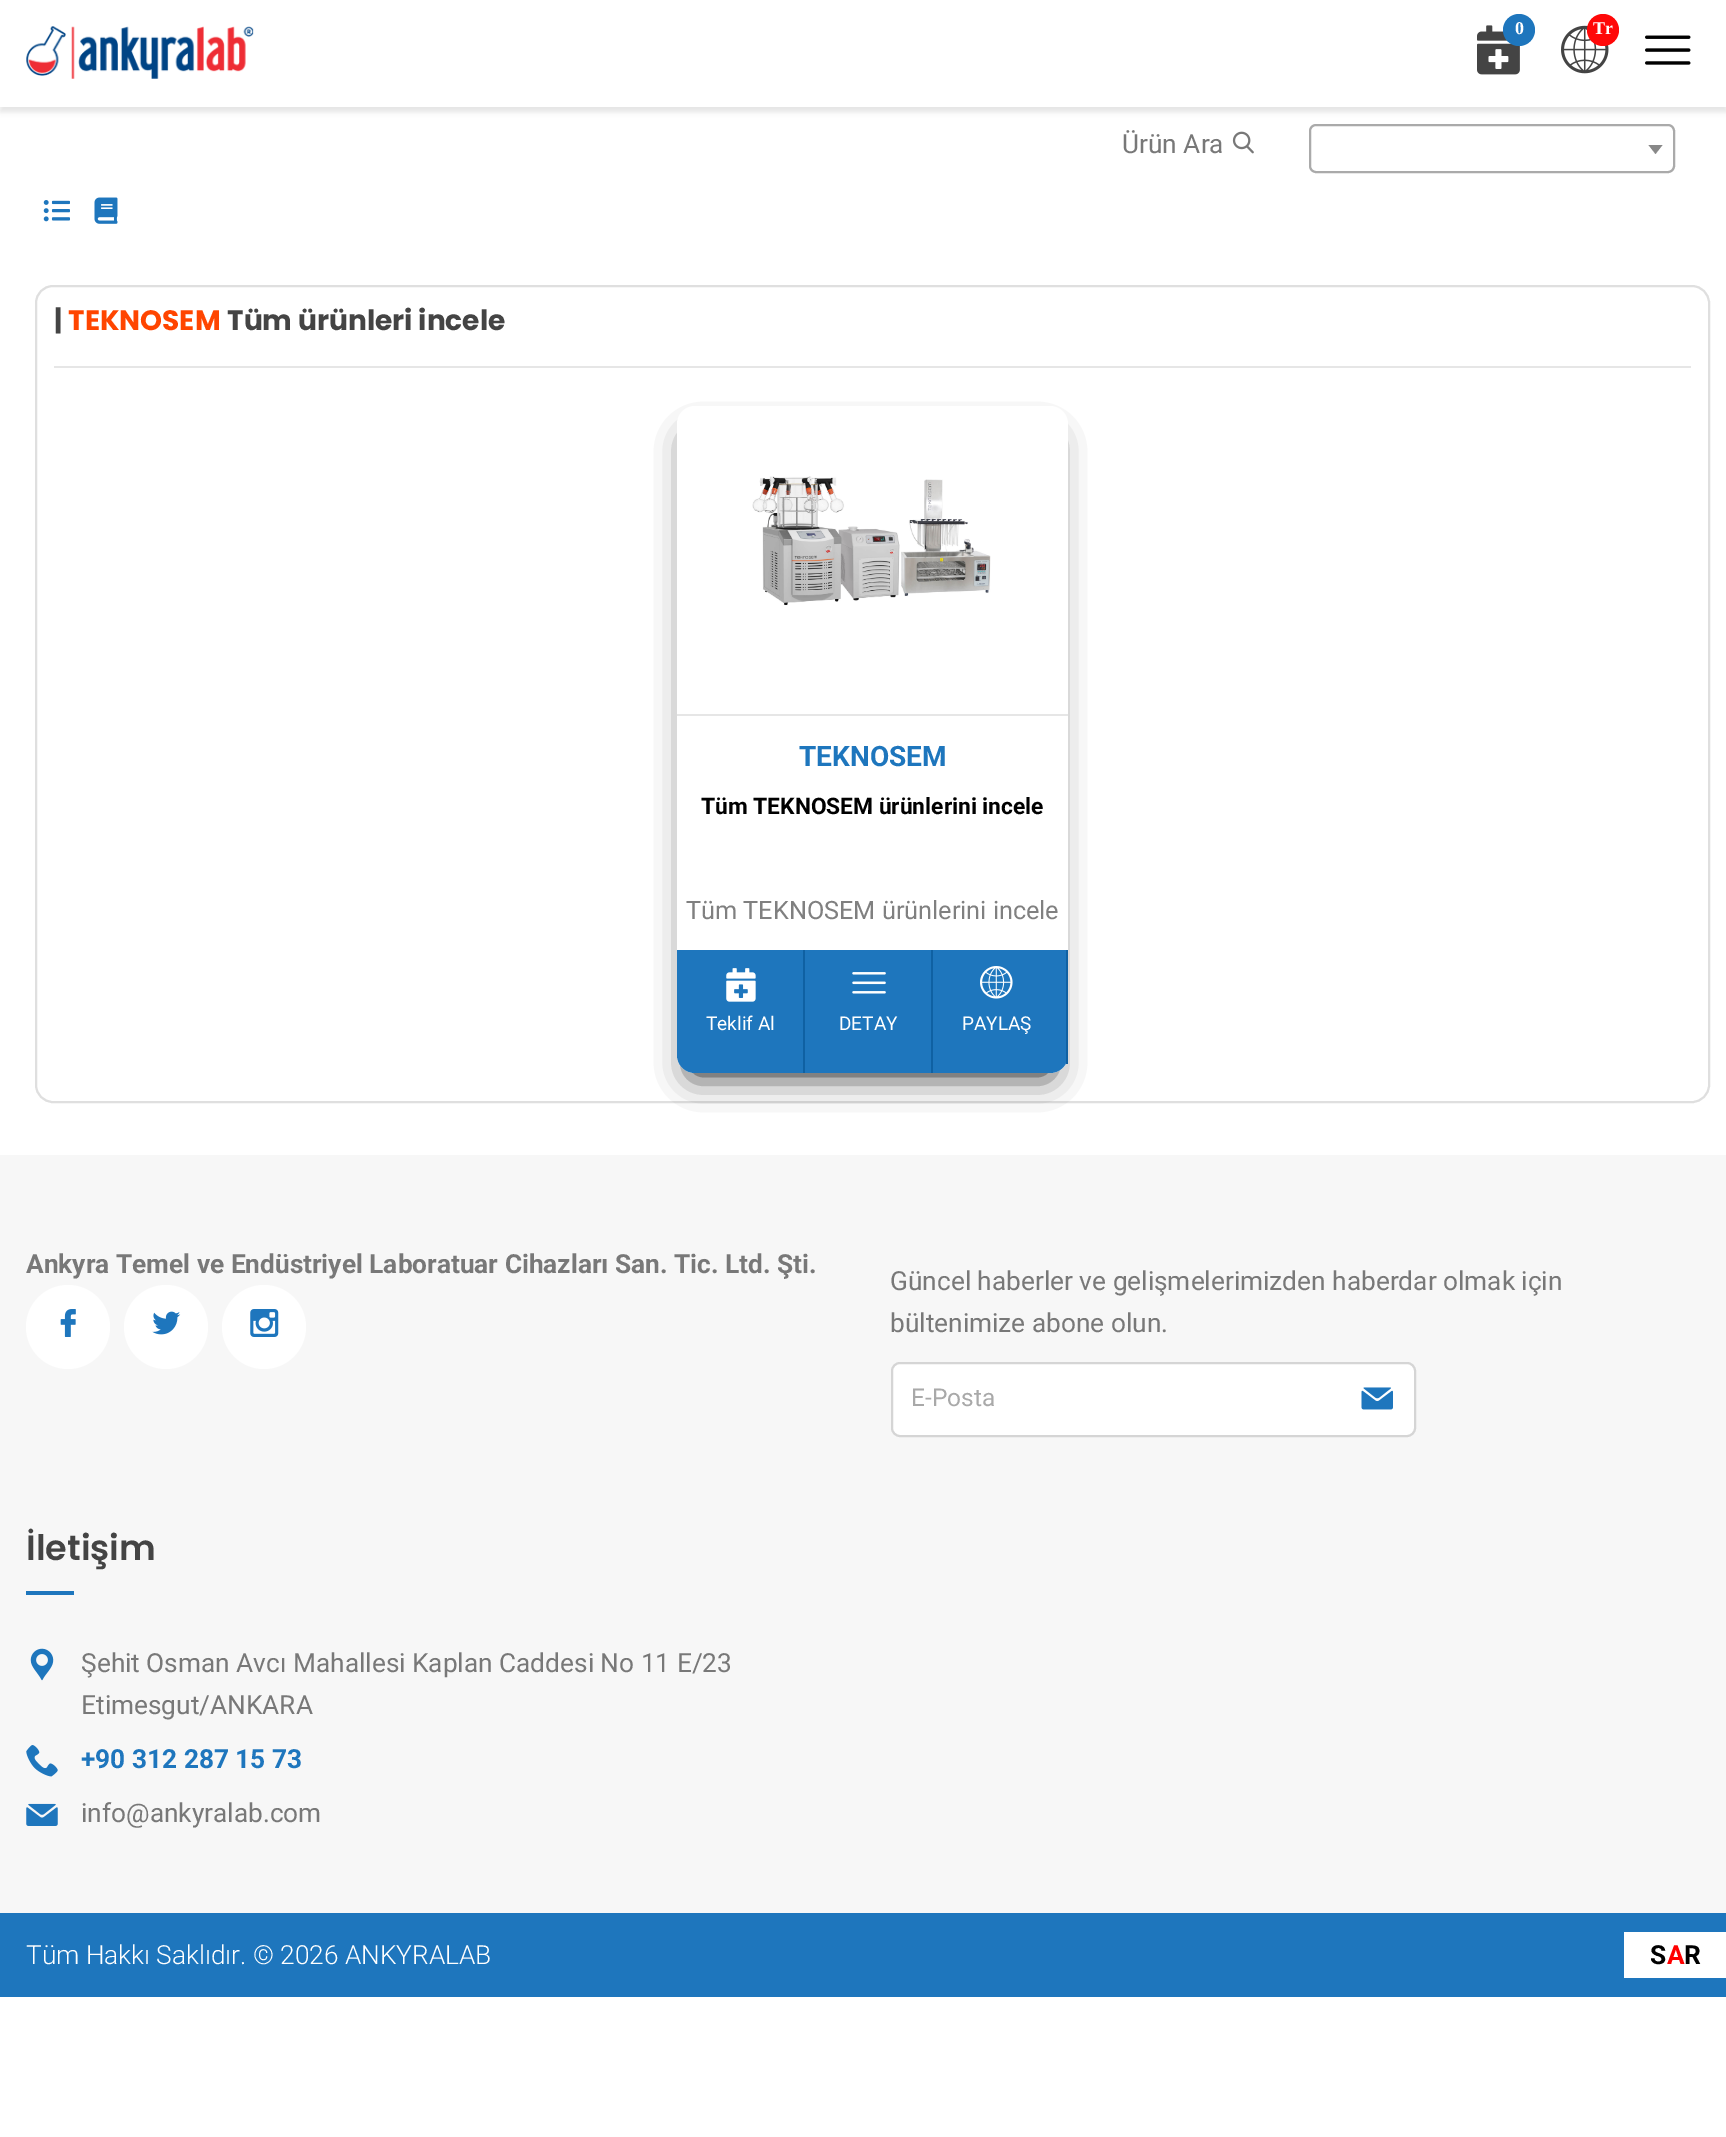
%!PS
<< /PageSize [1726 2137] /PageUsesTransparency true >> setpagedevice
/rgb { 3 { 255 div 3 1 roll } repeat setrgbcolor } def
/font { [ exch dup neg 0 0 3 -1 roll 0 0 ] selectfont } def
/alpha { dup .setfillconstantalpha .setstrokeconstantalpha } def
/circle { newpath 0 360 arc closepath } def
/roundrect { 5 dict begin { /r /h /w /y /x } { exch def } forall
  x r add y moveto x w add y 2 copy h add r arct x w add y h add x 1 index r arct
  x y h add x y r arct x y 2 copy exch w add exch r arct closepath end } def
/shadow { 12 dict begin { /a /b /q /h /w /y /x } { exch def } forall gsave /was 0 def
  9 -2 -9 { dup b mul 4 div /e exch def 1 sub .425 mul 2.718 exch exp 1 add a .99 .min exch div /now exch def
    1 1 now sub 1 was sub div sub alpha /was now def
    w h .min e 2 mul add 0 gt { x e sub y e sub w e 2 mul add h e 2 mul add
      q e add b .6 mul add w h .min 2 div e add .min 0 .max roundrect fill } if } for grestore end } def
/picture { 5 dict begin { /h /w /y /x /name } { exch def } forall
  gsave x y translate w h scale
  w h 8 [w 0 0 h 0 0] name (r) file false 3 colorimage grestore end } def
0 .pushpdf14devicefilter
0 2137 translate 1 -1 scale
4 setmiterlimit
255 255 255 rgb
0 0 1726 2137 rectfill
gsave
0 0 moveto 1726 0 lineto 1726 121 lineto 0 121 lineto closepath 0 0 moveto 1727 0 lineto 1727 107 lineto 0 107 lineto closepath eoclip newpath
0 0 0 rgb
0 5 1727 107 0 2.5 0.1 shadow
grestore
(img/1.rgb) 26 26 228 53 picture
(img/2.rgb) 1477 25 43 50 picture
30 118 189 rgb
1519 30 16 circle fill
(img/3.rgb) 1561 25 48 49 picture
255 8 8 rgb
1603 30 16 circle fill
(img/4.rgb) 1645 35 46 30 picture
(img/5.rgb) 1232 131 22 23 picture
170 170 170 rgb
2 setlinewidth
1310 125 364 47 6 roundrect stroke
136 136 136 rgb
1648.5 145 moveto 1662.5 145 lineto 1655.5 154 lineto closepath fill
(img/6.rgb) 43 200 27 22 picture
(img/7.rgb) 94 197 24 27 picture
223 223 223 rgb
36 286 1673 816 17 roundrect stroke
230 230 230 rgb
54 366 1637 2 rectfill
0 0 0 rgb
693 441 355 632 0 17.5 1 shadow
255 255 255 rgb
677 406 391 667 18 roundrect fill
(img/8.rgb) 752 476 239 130 picture
230 230 230 rgb
677 714 391 2 rectfill
30 118 189 rgb
677 950 moveto 1068 950 lineto 1068 1055 lineto 1068 1065 1060 1073 1050 1073 curveto 695 1073 lineto 685 1073 677 1065 677 1055 curveto closepath fill
15 97 163 rgb
1066 950 2 114 rectfill
803 950 2 123 rectfill
(img/9.rgb) 726 968 30 34 picture
931 950 2 123 rectfill
(img/10.rgb) 852 972 34 22 picture
(img/11.rgb) 980 966 33 33 picture
247 247 247 rgb
0 1155 1726 758 rectfill
255 255 255 rgb
68 1327 42 circle fill
(img/12.rgb) 60 1309 16 28 picture
166 1327 42 circle fill
(img/13.rgb) 152 1311 29 24 picture
264 1327 42 circle fill
(img/14.rgb) 250 1309 29 28 picture
892 1363 523 73 8 roundrect gsave fill grestore
213 213 213 rgb
stroke
(img/15.rgb) 1361 1387 32 23 picture
30 118 189 rgb
26 1591 48 4 rectfill
(img/16.rgb) 30 1648 24 33 picture
(img/17.rgb) 26 1745 32 32 picture
(img/18.rgb) 26 1803 32 23 picture
0 1913 1726 84 rectfill
255 255 255 rgb
1624 1932 102 46 rectfill
/LiberationSerif-Bold 18 font
1515 34 moveto (0) show
1593 34 moveto (Tr) show
/Roboto-Regular 26.25 font
120 120 120 rgb
1122 153 moveto (Ürün Ara) show
/Poppins-Bold 28 font
68 68 68 rgb
54 330 moveto (|) show
255 69 0 rgb
68 330 moveto (TEKNOSEM) show
68 68 68 rgb
227 330 moveto (Tüm ürünleri incele) show
/Roboto-Bold 28 font
30 118 189 rgb
799 766 moveto (TEKNOSEM) show
/Roboto-Bold 22.75 font
0 0 0 rgb
701 814 moveto (Tüm TEKNOSEM ürünlerini incele) show
/Roboto-Regular 25.25 font
128 128 128 rgb
686 919 moveto (Tüm TEKNOSEM ürünlerini incele) show
/Roboto-Regular 19 font
255 255 255 rgb
[
  [(Teklif Al) 706 1030]
  [(DETAY) 839 1030]
  [(PAYLAŞ) 962 1030]
] { aload pop moveto show } forall
/Roboto-Bold 26.25 font
120 120 120 rgb
26 1273 moveto (Ankyra Temel ve Endüstriyel Laboratuar Cihazları San. Tic. Ltd. Şti.) show
/Roboto-Regular 26.25 font
890 1290 moveto (Güncel haberler ve gelişmelerimizden haberdar olmak için) show
890 1332 moveto (bültenimize abone olun.) show
/Roboto-Regular 24.5 font
169 169 169 rgb
911 1406 moveto (E-Posta) show
/Poppins-SemiBold 35 font
68 68 68 rgb
26 1560 moveto (İletişim) show
/Roboto-Regular 26.25 font
120 120 120 rgb
81 1672 moveto (Şehit Osman Avcı Mahallesi Kaplan Caddesi No 11 E/23) show
81 1714 moveto (Etimesgut/ANKARA) show
/Roboto-Bold 26.25 font
30 118 189 rgb
81 1768 moveto (+90 312 287 15 73) show
/Roboto-Regular 26.25 font
120 120 120 rgb
81 1822 moveto (info@ankyralab.com) show
/Roboto-Light 26.25 font
255 255 255 rgb
26 1964 moveto (Tüm Hakkı Saklıdır. © 2026 ANKYRALAB) show
/Roboto-Bold 26.25 font
0 0 0 rgb
1650 1964 moveto (S) show
255 0 0 rgb
1667 1964 moveto (A) show
0 0 0 rgb
1684 1964 moveto (R) show
.poppdf14devicefilter showpage
